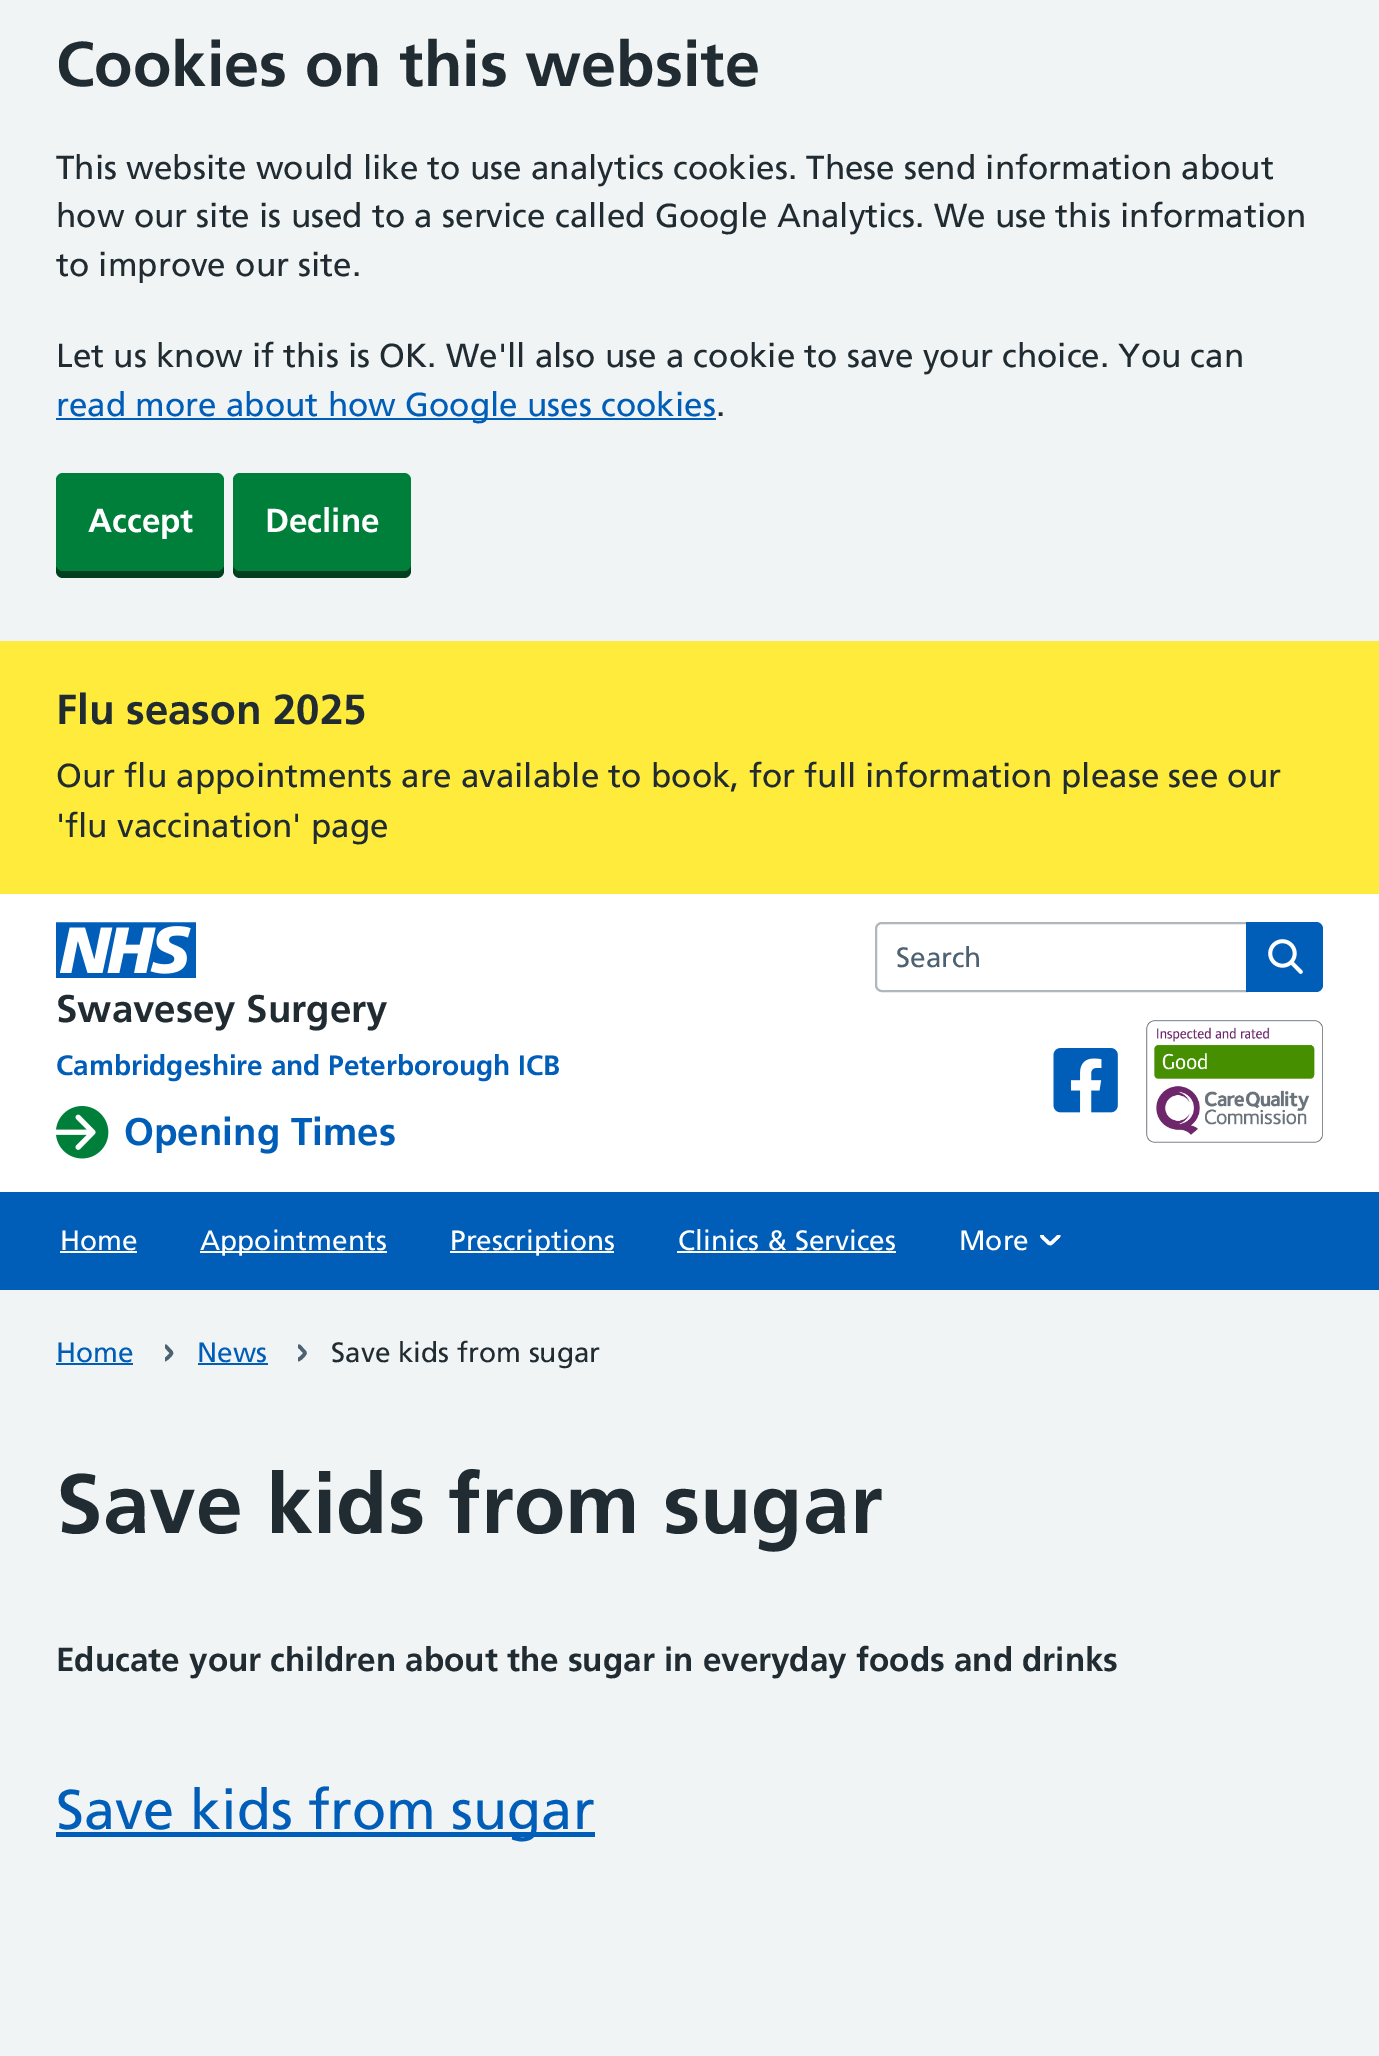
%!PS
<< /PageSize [1379 2056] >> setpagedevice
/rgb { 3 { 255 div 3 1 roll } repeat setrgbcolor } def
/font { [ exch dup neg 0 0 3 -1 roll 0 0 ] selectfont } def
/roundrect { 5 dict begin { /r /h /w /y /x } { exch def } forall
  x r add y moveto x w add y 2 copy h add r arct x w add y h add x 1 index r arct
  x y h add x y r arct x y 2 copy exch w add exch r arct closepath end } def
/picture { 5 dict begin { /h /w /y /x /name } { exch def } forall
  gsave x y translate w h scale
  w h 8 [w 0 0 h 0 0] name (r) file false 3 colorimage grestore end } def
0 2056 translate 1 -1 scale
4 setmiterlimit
240 244 245 rgb
0 0 1379 2056 rectfill
0 94 184 rgb
56 418 660 2 rectfill
0 64 30 rgb
56 564 moveto 56 571 lineto 56 575 59 578 63 578 curveto 217 578 lineto 221 578 224 575 224 571 curveto 224 564 lineto 224 567 221 570 217 570 curveto 63 570 lineto 59 570 56 567 56 564 curveto closepath fill
0 127 59 rgb
56 473 168 98 7 roundrect fill
0 64 30 rgb
233 565 moveto 233 571 lineto 233 575 236 578 240 578 curveto 404 578 lineto 408 578 411 575 411 571 curveto 411 565 lineto 410 568 407 570 404 570 curveto 240 570 lineto 237 570 234 568 233 565 curveto closepath fill
0 127 59 rgb
233 473 178 98 7 roundrect fill
255 235 59 rgb
0 641 1379 253 rectfill
255 255 255 rgb
0 894 1379 298 rectfill
174 183 189 rgb
2 setlinewidth
882 923 moveto 1247 923 lineto 1247 991 lineto 882 991 lineto 878.5 991 876 988.5 876 985 curveto 876 929 lineto 876 925.5 878.5 923 882 923 curveto closepath stroke
0 94 184 rgb
1246 922 moveto 1316 922 lineto 1320 922 1323 925 1323 929 curveto 1323 985 lineto 1323 989 1320 992 1316 992 curveto 1246 992 lineto closepath fill
(img/1.rgb) 1268 939 35 35 picture
(img/2.rgb) 1053 1048 65 65 picture
(img/3.rgb) 1146 1020 177 123 picture
(img/4.rgb) 56 922 140 56 picture
(img/5.rgb) 56 1106 53 53 picture
[
  [0 1192 1379 98 0 94 184]
  [60 1251 77 2 255 255 255]
  [200 1251 187 2 255 255 255]
  [450 1251 164 2 255 255 255]
  [677 1251 219 2 255 255 255]
] { aload pop rgb rectfill } forall
gsave
1038.5 1235 moveto 1050 1247 lineto 1062 1235 lineto closepath clip newpath
3.5 setlinewidth
1058.5 1236.5 moveto 1052.5 1242 lineto 1049.5 1245.5 1048.5 1242.5 1045.5 1240 curveto 1042.5 1237 1040 1236 1043.5 1232.5 curveto 1049 1227 lineto 1051 1225 1054 1229.5 1055 1230.5 curveto 1056 1231.5 1060 1234.5 1058.5 1236.5 curveto closepath stroke
grestore
0 94 184 rgb
56 1363 77 2 rectfill
gsave
165 1363 moveto 175 1353 lineto 165 1343 lineto closepath clip newpath
76 98 114 rgb
3.5 setlinewidth
166 1346.5 moveto 170 1351 lineto 172.5 1353 171.5 1353.5 169.5 1356 curveto 165 1360 165.5 1361 161 1356.5 curveto 158 1353.5 157 1353.5 160.5 1350 curveto 161.5 1349 164 1345 166 1346.5 curveto closepath stroke
grestore
198 1363 70 2 rectfill
gsave
298.5 1363 moveto 308 1353 lineto 298.5 1343 lineto closepath clip newpath
76 98 114 rgb
3.5 setlinewidth
299.5 1346.5 moveto 303.5 1351 lineto 306 1353 305 1353.5 303 1356 curveto 298.5 1360 299 1361 294.5 1356.5 curveto 291.5 1353.5 290.5 1353.5 294 1350 curveto 295 1349 297.5 1345 299.5 1346.5 curveto closepath stroke
grestore
56 1832 539 5 rectfill
/Frutiger-Bold 63 font
33 43 50 rgb
56 86 moveto (Cookies on this website) show
/Frutiger-Regular 33.25 font
[
  [(This website would like to use analytics cookies. These send information about) 56 179]
  [(how our site is used to a service called Google Analytics. We use this information) 56 227]
  [(to improve our site.) 56 276]
  [(Let us know if this is OK. We'll also use a cookie to save your choice. You can) 56 367]
] { aload pop moveto show } forall
0 94 184 rgb
56 416 moveto (read more about how Google uses cookies) show
33 43 50 rgb
716 416 moveto (.) show
/Frutiger-Bold 33.25 font
255 255 255 rgb
88 532 moveto (Accept) show
265 532 moveto (Decline) show
/Frutiger-Bold 42 font
33 43 50 rgb
56 724 moveto (Flu season 2025) show
/Frutiger-Regular 33.25 font
56 787 moveto (Our flu appointments are available to book, for full information please see our) show
56 837 moveto ('flu vaccination' page) show
/Frutiger-Regular 28 font
76 98 114 rgb
896 967 moveto (Search) show
/Frutiger-Bold 38.5 font
33 43 50 rgb
56 1022 moveto (Swavesey Surgery) show
/Frutiger-Bold 28 font
0 94 184 rgb
56 1075 moveto (Cambridgeshire and Peterborough ICB) show
/Frutiger-Bold 38.5 font
124 1145 moveto (Opening Times) show
/Frutiger-Regular 28 font
255 255 255 rgb
[
  [(Home) 60 1250]
  [(Appointments) 200 1250]
  [(Prescriptions) 450 1250]
  [(Clinics & Services) 678 1250]
  [(More) 959 1250]
] { aload pop moveto show } forall
0 94 184 rgb
56 1362 moveto (Home) show
197 1362 moveto (News) show
33 43 50 rgb
331 1362 moveto (Save kids from sugar) show
/Frutiger-Bold 84 font
56 1533 moveto (Save kids from sugar) show
/Frutiger-Bold 33.25 font
56 1671 moveto (Educate your children about the sugar in everyday foods and drinks) show
/Frutiger-Regular 56 font
0 94 184 rgb
56 1829 moveto (Save kids from sugar) show
showpage
